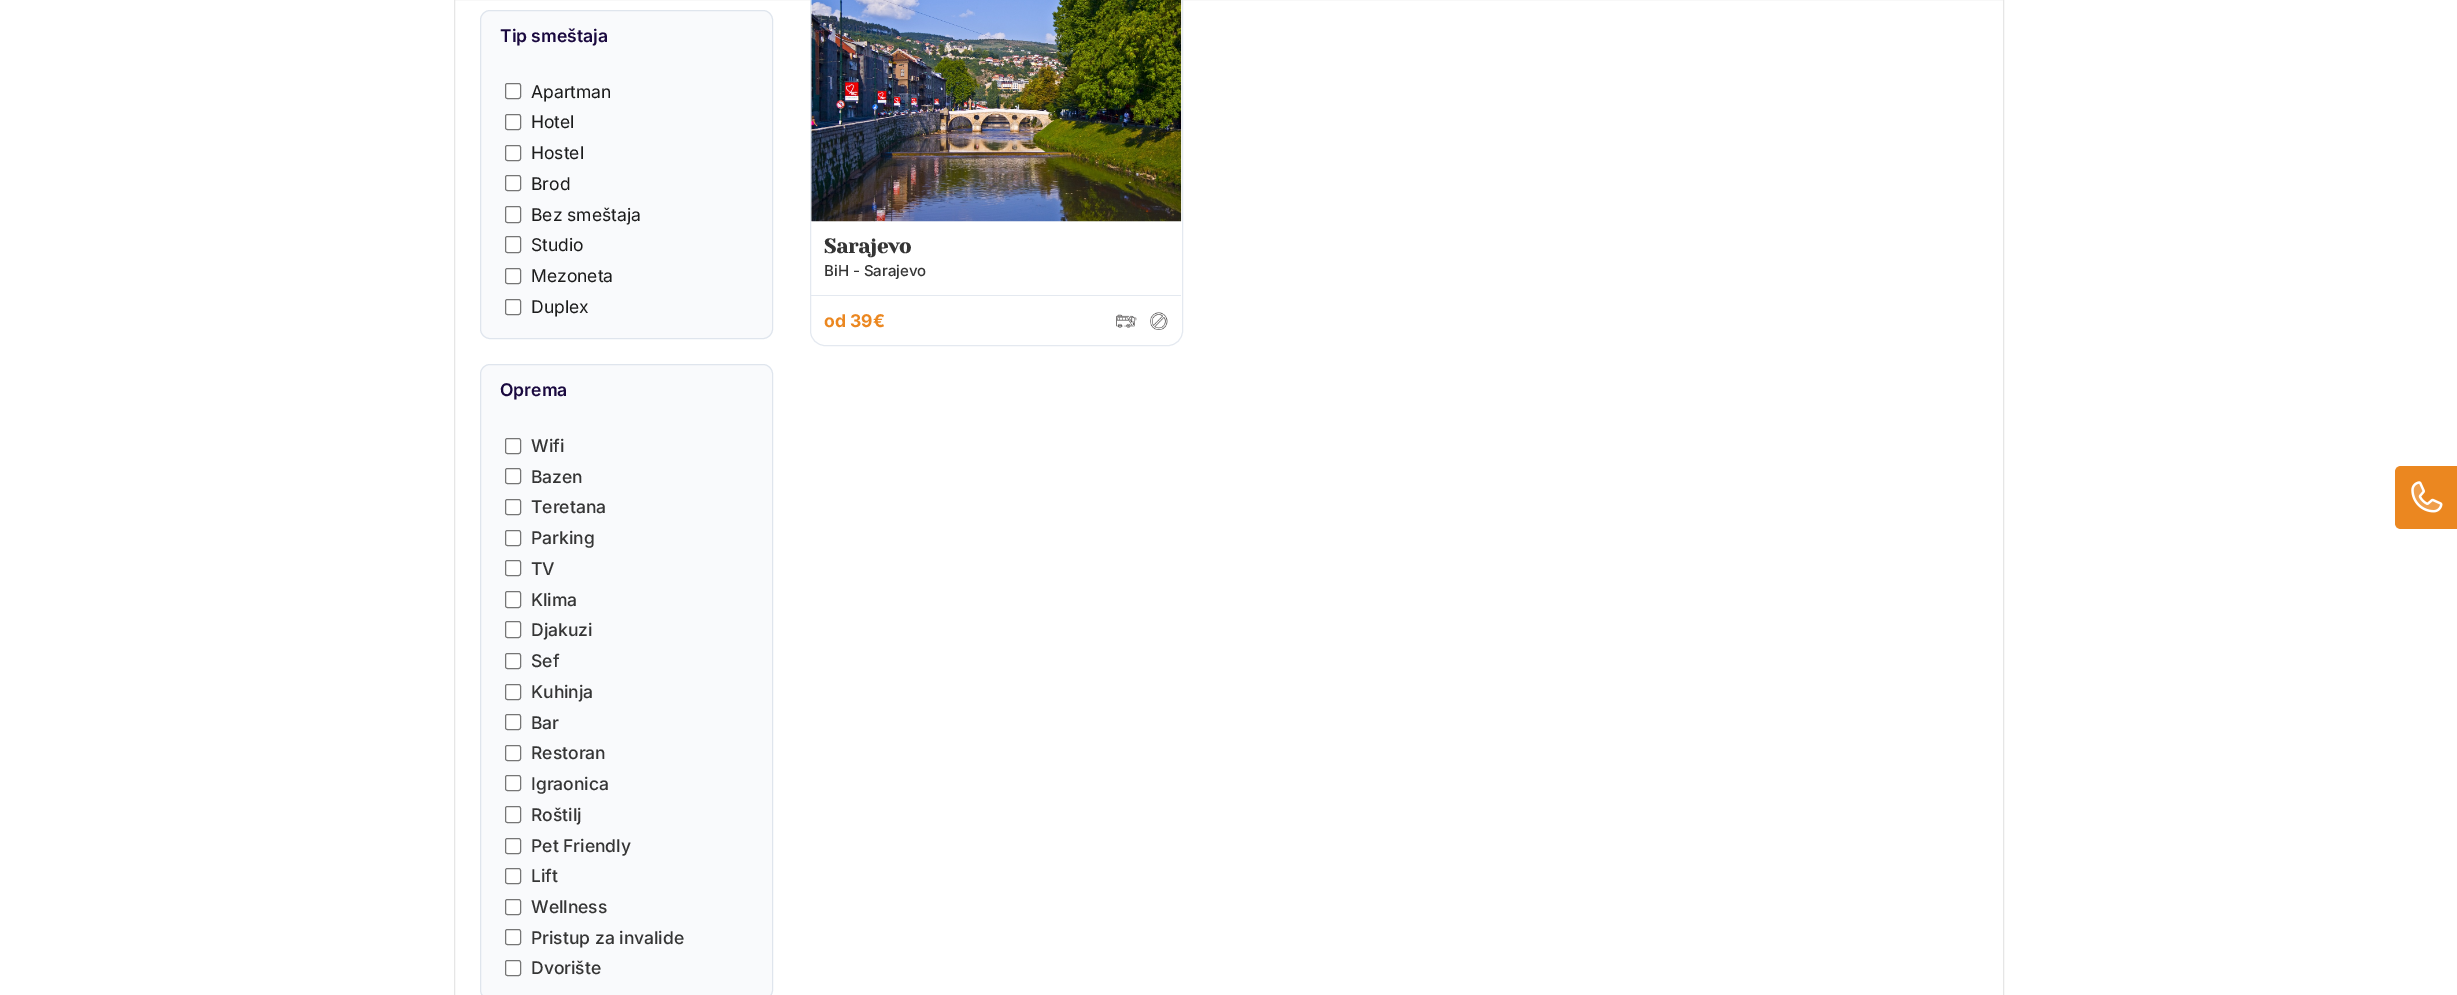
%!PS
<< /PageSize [2457 995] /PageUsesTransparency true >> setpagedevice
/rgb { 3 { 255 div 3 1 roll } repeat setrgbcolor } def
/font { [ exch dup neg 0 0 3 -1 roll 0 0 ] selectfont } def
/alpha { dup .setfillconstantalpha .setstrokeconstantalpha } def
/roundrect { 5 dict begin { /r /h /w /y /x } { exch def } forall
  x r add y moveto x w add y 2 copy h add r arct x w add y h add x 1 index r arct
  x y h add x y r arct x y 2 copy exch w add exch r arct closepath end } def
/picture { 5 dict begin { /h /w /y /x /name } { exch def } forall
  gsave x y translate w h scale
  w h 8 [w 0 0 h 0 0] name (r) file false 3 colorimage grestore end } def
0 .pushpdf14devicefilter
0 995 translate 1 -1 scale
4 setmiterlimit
255 255 255 rgb
0 0 2457 995 rectfill
230 230 230 rgb
454.5 -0.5 1549 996 rectstroke
249 250 252 rgb
480 10 293 329 10 roundrect fill
0.2 alpha
118 144 178 rgb
480.5 10.5 292 328 9.5 roundrect stroke
1 alpha
255 255 255 rgb
505.5 83.5 15 15 2 roundrect gsave fill grestore
118 118 118 rgb
stroke
255 255 255 rgb
505.5 114.5 15 15 2 roundrect gsave fill grestore
118 118 118 rgb
stroke
255 255 255 rgb
505.5 145.5 15 15 2 roundrect gsave fill grestore
118 118 118 rgb
stroke
255 255 255 rgb
505.5 175.5 15 15 2 roundrect gsave fill grestore
118 118 118 rgb
stroke
255 255 255 rgb
505.5 206.5 15 16 2 roundrect gsave fill grestore
118 118 118 rgb
stroke
255 255 255 rgb
505.5 236.5 15 16 2 roundrect gsave fill grestore
118 118 118 rgb
stroke
255 255 255 rgb
505.5 268.5 15 15 2 roundrect gsave fill grestore
118 118 118 rgb
stroke
255 255 255 rgb
505.5 299.5 15 15 2 roundrect gsave fill grestore
118 118 118 rgb
stroke
249 250 252 rgb
480 364 293 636 10 roundrect fill
0.2 alpha
118 144 178 rgb
480.5 364.5 292 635 9.5 roundrect stroke
1 alpha
255 255 255 rgb
505.5 438.5 15 15 2 roundrect gsave fill grestore
118 118 118 rgb
stroke
255 255 255 rgb
505.5 468.5 15 15 2 roundrect gsave fill grestore
118 118 118 rgb
stroke
255 255 255 rgb
505.5 499.5 15 15 2 roundrect gsave fill grestore
118 118 118 rgb
stroke
255 255 255 rgb
505.5 530.5 15 15 2 roundrect gsave fill grestore
118 118 118 rgb
stroke
255 255 255 rgb
505.5 560.5 15 15 2 roundrect gsave fill grestore
118 118 118 rgb
stroke
255 255 255 rgb
505.5 591.5 15 16 2 roundrect gsave fill grestore
118 118 118 rgb
stroke
255 255 255 rgb
505.5 621.5 15 16 2 roundrect gsave fill grestore
118 118 118 rgb
stroke
255 255 255 rgb
505.5 653.5 15 15 2 roundrect gsave fill grestore
118 118 118 rgb
stroke
255 255 255 rgb
505.5 684.5 15 15 2 roundrect gsave fill grestore
118 118 118 rgb
stroke
255 255 255 rgb
505.5 714.5 15 15 2 roundrect gsave fill grestore
118 118 118 rgb
stroke
255 255 255 rgb
505.5 745.5 15 15 2 roundrect gsave fill grestore
118 118 118 rgb
stroke
255 255 255 rgb
505.5 775.5 15 15 2 roundrect gsave fill grestore
118 118 118 rgb
stroke
255 255 255 rgb
505.5 806.5 15 16 2 roundrect gsave fill grestore
118 118 118 rgb
stroke
255 255 255 rgb
505.5 838.5 15 15 2 roundrect gsave fill grestore
118 118 118 rgb
stroke
255 255 255 rgb
505.5 868.5 15 15 2 roundrect gsave fill grestore
118 118 118 rgb
stroke
255 255 255 rgb
505.5 899.5 15 15 2 roundrect gsave fill grestore
118 118 118 rgb
stroke
255 255 255 rgb
505.5 929.5 15 15 2 roundrect gsave fill grestore
118 118 118 rgb
stroke
255 255 255 rgb
505.5 960.5 15 15 2 roundrect gsave fill grestore
118 118 118 rgb
stroke
228 233 240 rgb
810.5 -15.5 372 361 14.5 roundrect stroke
(img/1.rgb) 811 0 371 222 picture
811 295 370 1 rectfill
(img/2.rgb) 1116 314 21 14 picture
(img/3.rgb) 1150 312 18 18 picture
235 135 32 rgb
2401 466 moveto 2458 466 lineto 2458 529 lineto 2401 529 lineto 2397.5 529 2395 526.5 2395 523 curveto 2395 472 lineto 2395 468.5 2397.5 466 2401 466 curveto closepath fill
(img/4.rgb) 2411 481 32 32 picture
/Inter-SemiBold 17.5 font
26 9 63 rgb
500 42 moveto (Tip smeštaja) show
/Inter-Regular 17.5 font
28 28 28 rgb
[
  [(Apartman) 531 98]
  [(Hotel) 531 128]
  [(Hostel) 531 159]
  [(Brod) 531 190]
  [(Bez smeštaja) 531 221]
  [(Studio) 531 251]
  [(Mezoneta) 531 282]
  [(Duplex) 531 313]
] { aload pop moveto show } forall
/Inter-SemiBold 17.5 font
26 9 63 rgb
500 396 moveto (Oprema) show
/Inter-Medium 17.5 font
53 53 53 rgb
[
  [(Wifi) 531 452]
  [(Bazen) 531 483]
  [(Teretana) 531 513]
  [(Parking) 531 544]
  [(TV) 531 575]
  [(Klima) 531 606]
  [(Djakuzi) 531 636]
  [(Sef) 531 667]
  [(Kuhinja) 531 698]
  [(Bar) 531 729]
  [(Restoran) 531 759]
  [(Igraonica) 531 790]
  [(Roštilj) 531 821]
  [(Pet Friendly) 531 852]
  [(Lift) 531 882]
  [(Wellness) 531 913]
  [(Pristup za invalide) 531 944]
  [(Dvorište) 531 974]
] { aload pop moveto show } forall
/YesevaOne-Bold 20 font
824 253 moveto (Sarajevo) show
/Inter-Medium 15 font
824 276 moveto (BiH - Sarajevo) show
/Inter-Bold 17.5 font
235 135 32 rgb
824 327 moveto (od 39€) show
.poppdf14devicefilter showpage
